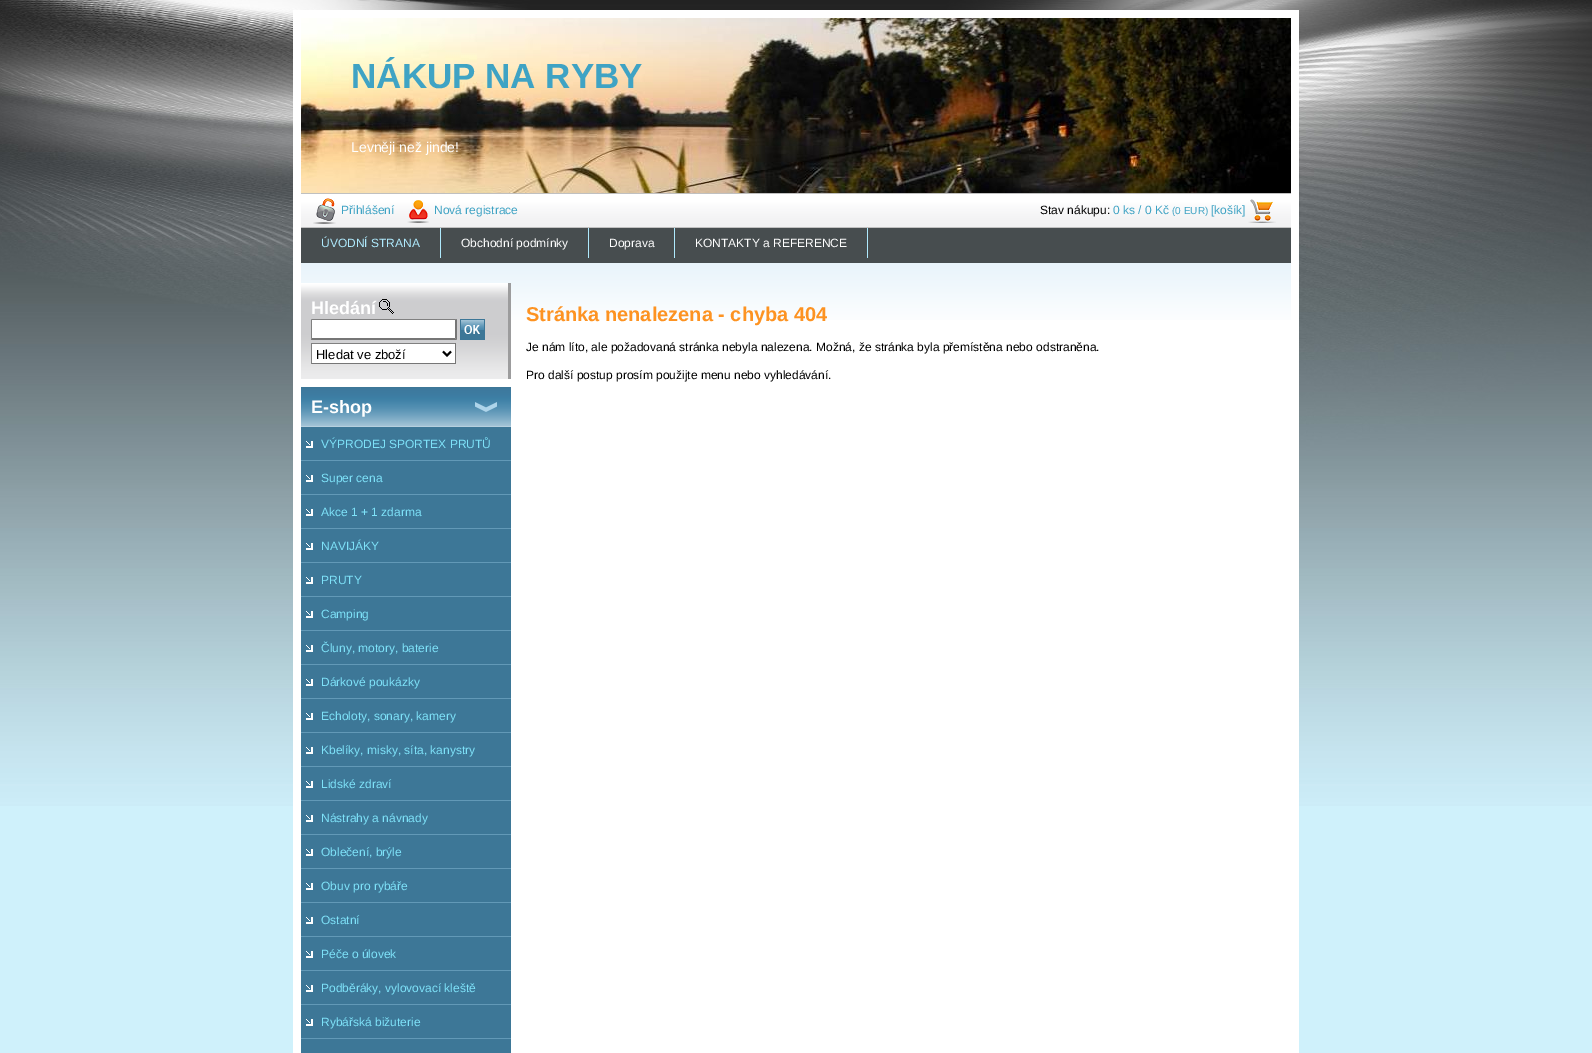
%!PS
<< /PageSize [1592 1053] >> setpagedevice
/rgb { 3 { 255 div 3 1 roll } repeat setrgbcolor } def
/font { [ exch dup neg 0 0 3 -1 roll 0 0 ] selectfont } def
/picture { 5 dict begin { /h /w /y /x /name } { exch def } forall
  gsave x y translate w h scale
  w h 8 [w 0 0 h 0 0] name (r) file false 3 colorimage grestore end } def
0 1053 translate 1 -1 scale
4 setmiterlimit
207 241 251 rgb
0 0 1592 1053 rectfill
(img/1.rgb) 0 0 1592 806 picture
255 255 255 rgb
293 10 1006 1043 rectfill
(img/2.rgb) 301 18 990 175 picture
192 192 192 rgb
301 193 990 35 rectfill
(img/3.rgb) 301 194 990 33 picture
(img/4.rgb) 313 198 23 26 picture
(img/5.rgb) 407 200 22 23 picture
(img/6.rgb) 1248 199 28 24 picture
[
  [301 228 990 35 71 77 79]
  [440 228 1 30 175 234 253]
  [588 228 1 30 175 234 253]
  [674 228 1 30 175 234 253]
  [867 228 1 30 175 234 253]
] { aload pop rgb rectfill } forall
(img/7.rgb) 301 263 990 57 picture
(img/8.rgb) 301 283 210 96 picture
(img/9.rgb) 379 299 15 15 picture
255 255 255 rgb
311 319 146 21 rectfill
128 128 128 rgb
311 319 moveto 457 319 lineto 455 320 lineto 312 320 lineto closepath fill
118 118 118 rgb
457 319 moveto 457 340 lineto 455 338 lineto 455 320 lineto closepath fill
457 340 moveto 311 340 lineto 312 338 lineto 455 338 lineto closepath fill
128 128 128 rgb
311 340 moveto 311 319 lineto 312 320 lineto 312 338 lineto closepath fill
(img/10.rgb) 460 319 25 21 picture
[
  [312 344 143 19 255 255 255]
  [311 343 145 1 128 128 128]
  [455 343 1 21 118 118 118]
  [311 363 145 1 118 118 118]
  [311 343 1 21 128 128 128]
] { aload pop rgb rectfill } forall
0 0 0 rgb
2 setlinewidth
443 351.5 moveto 447 355.5 lineto 451 351.5 lineto stroke
(img/11.rgb) 301 387 210 40 picture
(img/12.rgb) 301 427 210 34 picture
(img/12.rgb) 301 461 210 34 picture
(img/12.rgb) 301 495 210 34 picture
(img/12.rgb) 301 529 210 34 picture
(img/12.rgb) 301 563 210 34 picture
(img/12.rgb) 301 597 210 34 picture
(img/12.rgb) 301 631 210 34 picture
(img/12.rgb) 301 665 210 34 picture
(img/12.rgb) 301 699 210 34 picture
(img/12.rgb) 301 733 210 34 picture
(img/12.rgb) 301 767 210 34 picture
(img/12.rgb) 301 801 210 34 picture
(img/12.rgb) 301 835 210 34 picture
(img/12.rgb) 301 869 210 34 picture
(img/12.rgb) 301 903 210 34 picture
(img/12.rgb) 301 937 210 34 picture
(img/12.rgb) 301 971 210 34 picture
(img/12.rgb) 301 1005 210 34 picture
61 119 151 rgb
301 1039 210 14 rectfill
/LiberationSans-Bold 35 font
63 163 196 rgb
351 88 moveto (NÁKUP NA RYBY) show
/LiberationSans-Regular 14 font
255 255 255 rgb
351 152 moveto (Levněji než jinde!) show
/LiberationSans-Regular 12 font
63 163 196 rgb
341 214 moveto (Přihlášení) show
434 214 moveto (Nová registrace) show
0 0 0 rgb
1040 214 moveto (Stav nákupu:) show
63 163 196 rgb
1113 214 moveto (0 ks / 0 Kč) show
/LiberationSans-Regular 10 font
1172 214 moveto (\(0 EUR\)) show
/LiberationSans-Regular 12 font
1211 214 moveto ([košík]) show
175 234 253 rgb
321 247 moveto (ÚVODNÍ STRANA) show
255 255 255 rgb
[
  [(Obchodní podmínky) 461 247]
  [(Doprava) 609 247]
  [(KONTAKTY a REFERENCE) 695 247]
] { aload pop moveto show } forall
/LiberationSans-Bold 18 font
311 314 moveto (Hledání) show
/LiberationSans-Regular 13 font
0 0 0 rgb
316 359 moveto (Hledat ve zboží) show
/LiberationSans-Bold 18 font
255 255 255 rgb
311 413 moveto (E-shop) show
/LiberationSans-Regular 12 font
126 226 249 rgb
[
  [(VÝPRODEJ SPORTEX PRUTŮ) 321 448]
  [(Super cena) 321 482]
  [(Akce 1 + 1 zdarma) 321 516]
  [(NAVIJÁKY) 321 550]
  [(PRUTY) 321 584]
  [(Camping) 321 618]
  [(Čluny, motory, baterie) 321 652]
  [(Dárkové poukázky) 321 686]
  [(Echoloty, sonary, kamery) 321 720]
  [(Kbelíky, misky, síta, kanystry) 321 754]
  [(Lidské zdraví) 321 788]
  [(Nástrahy a návnady) 321 822]
  [(Oblečení, brýle) 321 856]
  [(Obuv pro rybáře) 321 890]
  [(Ostatní) 321 924]
  [(Péče o úlovek) 321 958]
  [(Podběráky, vylovovací kleště) 321 992]
  [(Rybářská bižuterie) 321 1026]
] { aload pop moveto show } forall
/LiberationSans-Bold 20 font
253 147 34 rgb
526 321 moveto (Stránka nenalezena - chyba 404) show
/LiberationSans-Regular 12 font
0 0 0 rgb
526 351 moveto (Je nám líto, ale požadovaná stránka nebyla nalezena. Možná, že stránka byla přemístěna nebo odstraněna.) show
526 379 moveto (Pro další postup prosím použijte menu nebo vyhledávání.) show
showpage
